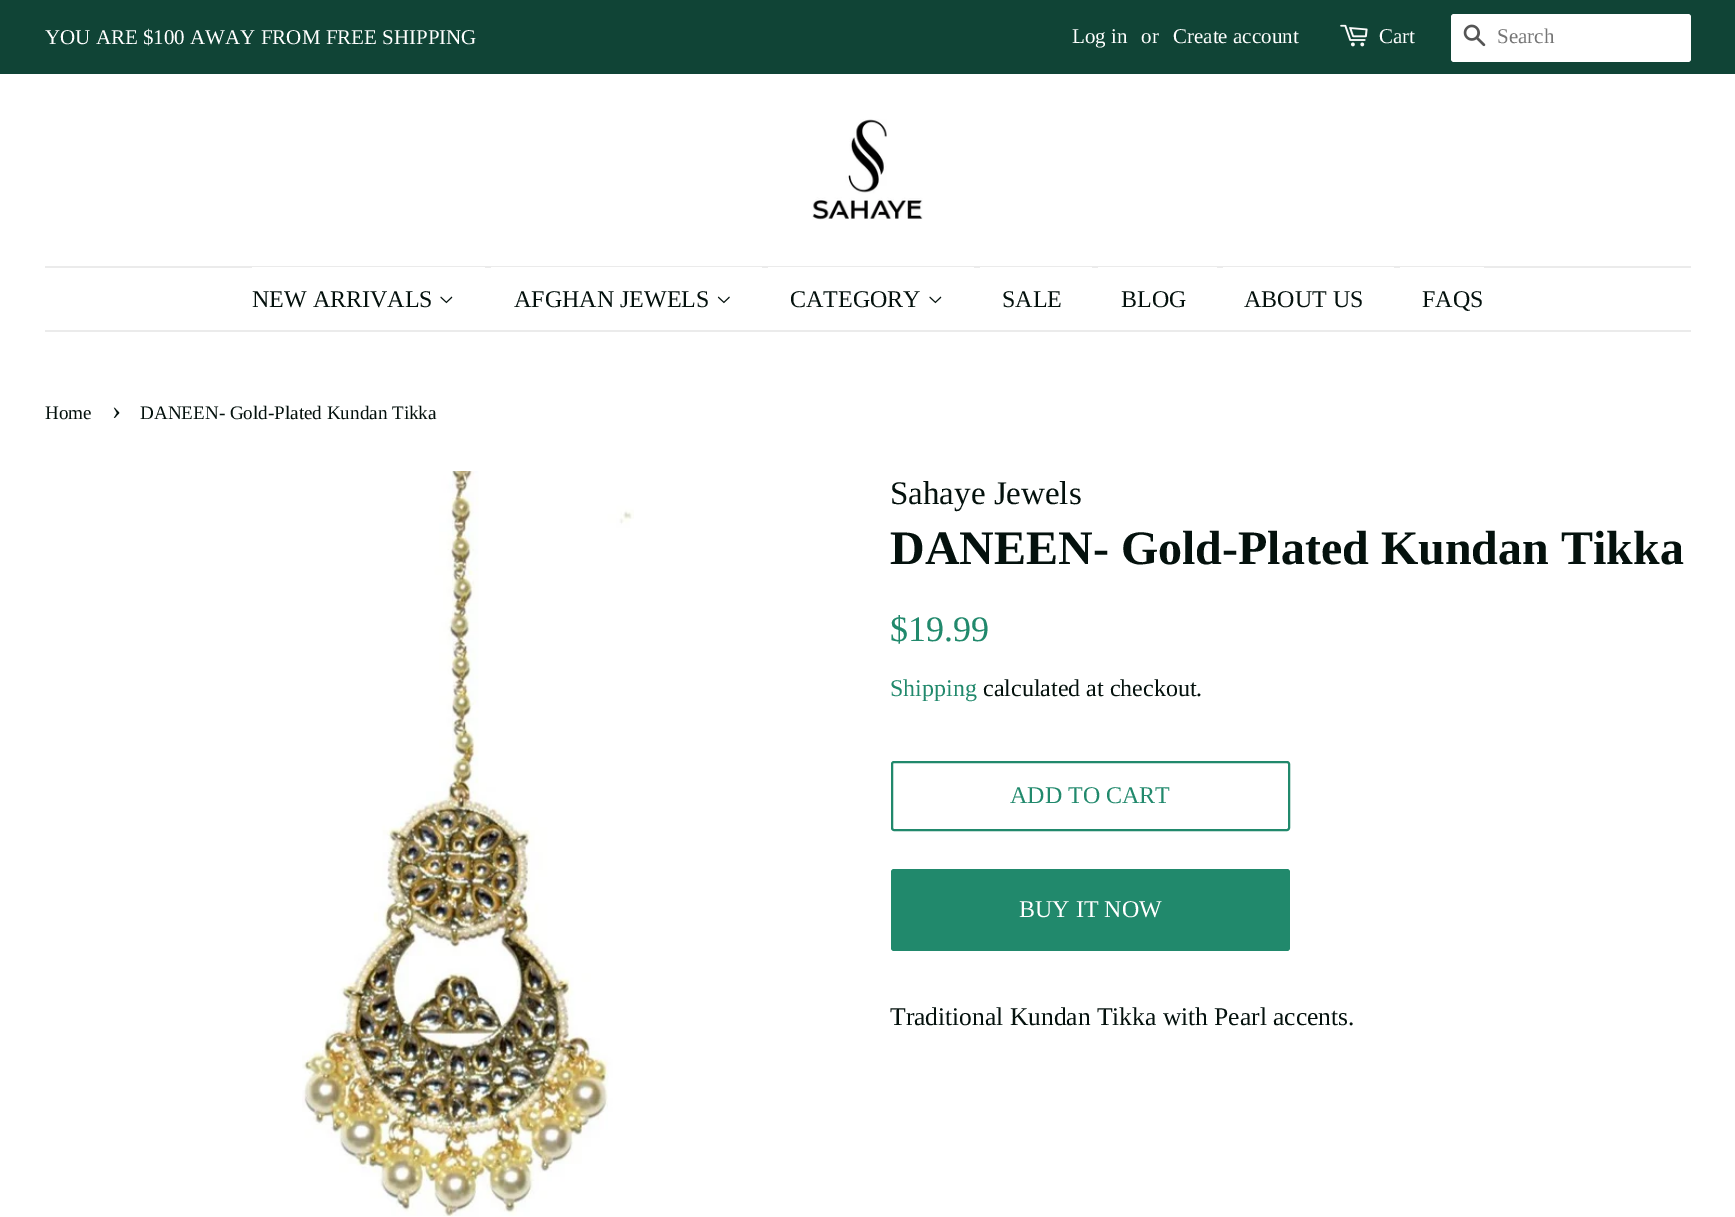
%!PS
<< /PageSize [1735 1217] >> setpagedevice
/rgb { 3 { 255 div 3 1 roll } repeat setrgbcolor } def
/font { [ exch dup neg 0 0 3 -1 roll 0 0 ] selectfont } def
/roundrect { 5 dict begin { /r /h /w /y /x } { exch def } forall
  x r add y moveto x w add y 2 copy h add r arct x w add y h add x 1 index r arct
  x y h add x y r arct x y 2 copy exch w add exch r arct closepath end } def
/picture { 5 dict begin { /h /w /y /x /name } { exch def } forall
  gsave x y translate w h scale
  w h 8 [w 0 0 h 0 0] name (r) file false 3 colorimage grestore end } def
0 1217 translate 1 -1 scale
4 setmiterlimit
255 255 255 rgb
0 0 1735 1217 rectfill
16 68 54 rgb
0 0 1735 74 rectfill
(img/1.rgb) 1340 24 28 23 picture
255 255 255 rgb
1451 14 240 48 3 roundrect fill
(img/2.rgb) 1463 24 23 23 picture
(img/3.rgb) 812 119 111 101 picture
[
  [45 266 1646 2 235 235 235]
  [45 330 1646 2 235 235 235]
  [252 267 233 1 255 255 255]
] { aload pop rgb rectfill } forall
(img/4.rgb) 440 296 13 8 picture
491 267 271 1 rectfill
(img/5.rgb) 717 296 13 8 picture
768 267 206 1 rectfill
(img/4.rgb) 929 296 13 8 picture
[
  [980 267 112 1 255 255 255]
  [1098 267 119 1 255 255 255]
  [1223 267 171 1 255 255 255]
  [1400 267 84 1 255 255 255]
] { aload pop rgb rectfill } forall
(img/6.rgb) 302 471 332 746 picture
33 137 108 rgb
2 setlinewidth
892 762 397 68 2 roundrect stroke
891 869 399 82 3 roundrect fill
/LiberationSerif-Regular 21 font
255 255 255 rgb
[
  [(YOU ARE $100 AWAY FROM FREE SHIPPING) 45 44]
  [(Log in) 1072 43]
  [(or) 1141 43]
  [(Create account) 1173 43]
  [(Cart) 1379 43]
] { aload pop moveto show } forall
117 117 117 rgb
1497 43 moveto (Search) show
/LiberationSerif-Regular 24 font
4 17 13 rgb
[
  [(NEW ARRIVALS) 252 307]
  [(AFGHAN JEWELS) 514 307]
  [(CATEGORY) 790 307]
  [(SALE) 1002 307]
  [(BLOG) 1121 307]
  [(ABOUT US) 1244 307]
  [(FAQS) 1422 307]
] { aload pop moveto show } forall
/LiberationSerif-Regular 19.1 font
45 419 moveto (Home) show
/LiberationSerif-Regular 27 font
112 419 moveto (›) show
/LiberationSerif-Regular 19.1 font
140 419 moveto (DANEEN- Gold-Plated Kundan Tikka) show
/LiberationSerif-Regular 33 font
890 504 moveto (Sahaye Jewels) show
/LiberationSerif-Bold 48 font
890 564 moveto (DANEEN- Gold-Plated Kundan Tikka) show
/LiberationSerif-Regular 36 font
33 137 108 rgb
890 641 moveto ($19.99) show
/LiberationSerif-Regular 24 font
890 696 moveto (Shipping) show
4 17 13 rgb
983 696 moveto (calculated at checkout.) show
33 137 108 rgb
1010 803 moveto (ADD TO CART) show
255 255 255 rgb
1019 917 moveto (BUY IT NOW) show
/LiberationSerif-Regular 25.5 font
4 17 13 rgb
890 1025 moveto (Traditional Kundan Tikka with Pearl accents.) show
showpage
